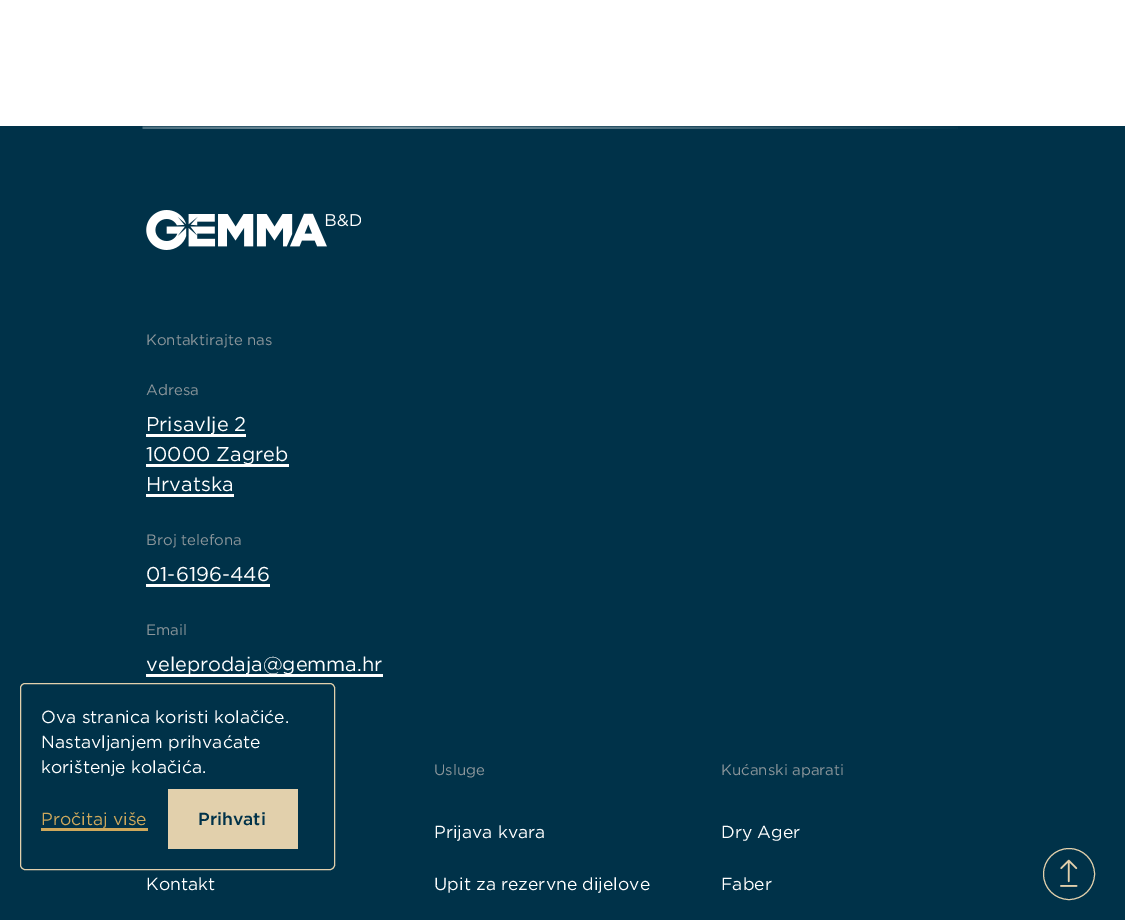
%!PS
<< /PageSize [1125 920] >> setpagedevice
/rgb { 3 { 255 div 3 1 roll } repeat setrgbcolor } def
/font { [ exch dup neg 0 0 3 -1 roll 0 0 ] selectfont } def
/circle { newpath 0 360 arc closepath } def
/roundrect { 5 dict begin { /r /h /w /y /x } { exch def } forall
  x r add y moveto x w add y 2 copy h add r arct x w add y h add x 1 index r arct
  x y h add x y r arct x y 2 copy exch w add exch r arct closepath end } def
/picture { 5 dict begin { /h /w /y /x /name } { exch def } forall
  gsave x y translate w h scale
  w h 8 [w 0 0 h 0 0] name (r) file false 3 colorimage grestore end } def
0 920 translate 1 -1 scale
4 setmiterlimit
255 255 255 rgb
0 0 1125 920 rectfill
0 50 73 rgb
0 126 1125 794 rectfill
(img/1.rgb) 142 126 816 3 picture
(img/2.rgb) 146 210 215 40 picture
[
  [146 434 100 3 255 255 255]
  [146 464 143 3 255 255 255]
  [146 494 88 3 255 255 255]
  [146 584 124 3 255 255 255]
  [146 674 237 3 255 255 255]
] { aload pop rgb rectfill } forall
226 208 172 rgb
20.5 683.5 314 186 4.5 roundrect stroke
206 168 92 rgb
41 828 107 3 rectfill
226 208 172 rgb
168 789 130 60 rectfill
1069 874 25.5 circle stroke
(img/3.rgb) 1060 859 18 28 picture
/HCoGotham-Regular 15 font
140 150 155 rgb
146 345 moveto (Kontaktirajte nas) show
146 395 moveto (Adresa) show
/HCoGotham-Regular 20 font
255 255 255 rgb
[
  [(Prisavlje 2) 146 431]
  [(10000 Zagreb) 146 461]
  [(Hrvatska) 146 491]
] { aload pop moveto show } forall
/HCoGotham-Regular 15 font
140 150 155 rgb
146 545 moveto (Broj telefona) show
/HCoGotham-Regular 20 font
255 255 255 rgb
146 581 moveto (01-6196-446) show
/HCoGotham-Regular 15 font
140 150 155 rgb
146 635 moveto (Email) show
/HCoGotham-Regular 20 font
255 255 255 rgb
146 671 moveto (veleprodaja@gemma.hr) show
/HCoGotham-Regular 17.5 font
146 890 moveto (Kontakt) show
/HCoGotham-Regular 15 font
140 150 155 rgb
434 775 moveto (Usluge) show
/HCoGotham-Regular 17.5 font
255 255 255 rgb
434 838 moveto (Prijava kvara) show
434 890 moveto (Upit za rezervne dijelove) show
/HCoGotham-Regular 15 font
140 150 155 rgb
721 775 moveto (Kućanski aparati) show
/HCoGotham-Regular 17.5 font
255 255 255 rgb
[
  [(Dry Ager) 721 838]
  [(Faber) 721 890]
  [(Ova stranica koristi kolačiće.) 41 723]
  [(Nastavljanjem prihvaćate) 41 748]
  [(korištenje kolačića.) 41 773]
] { aload pop moveto show } forall
206 168 92 rgb
41 825 moveto (Pročitaj više) show
/HCoGotham-Medium 17.5 font
0 50 73 rgb
198 825 moveto (Prihvati) show
showpage
